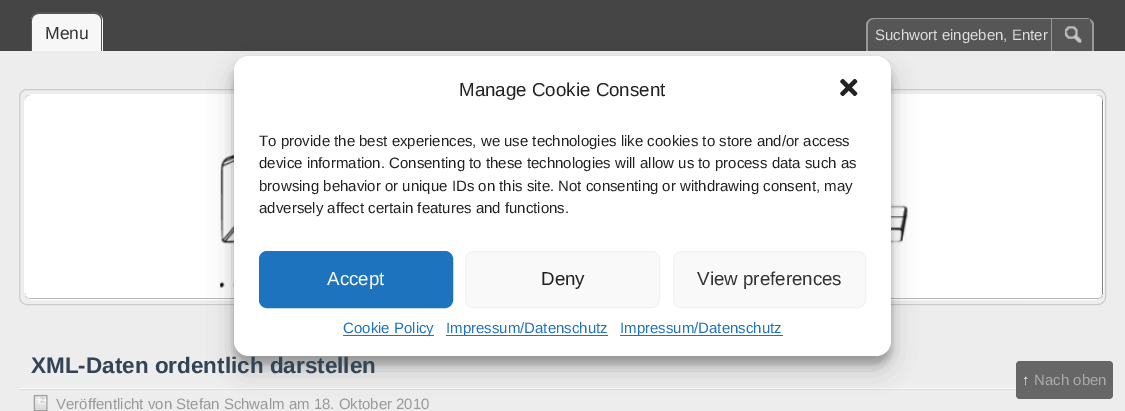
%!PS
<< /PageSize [1125 411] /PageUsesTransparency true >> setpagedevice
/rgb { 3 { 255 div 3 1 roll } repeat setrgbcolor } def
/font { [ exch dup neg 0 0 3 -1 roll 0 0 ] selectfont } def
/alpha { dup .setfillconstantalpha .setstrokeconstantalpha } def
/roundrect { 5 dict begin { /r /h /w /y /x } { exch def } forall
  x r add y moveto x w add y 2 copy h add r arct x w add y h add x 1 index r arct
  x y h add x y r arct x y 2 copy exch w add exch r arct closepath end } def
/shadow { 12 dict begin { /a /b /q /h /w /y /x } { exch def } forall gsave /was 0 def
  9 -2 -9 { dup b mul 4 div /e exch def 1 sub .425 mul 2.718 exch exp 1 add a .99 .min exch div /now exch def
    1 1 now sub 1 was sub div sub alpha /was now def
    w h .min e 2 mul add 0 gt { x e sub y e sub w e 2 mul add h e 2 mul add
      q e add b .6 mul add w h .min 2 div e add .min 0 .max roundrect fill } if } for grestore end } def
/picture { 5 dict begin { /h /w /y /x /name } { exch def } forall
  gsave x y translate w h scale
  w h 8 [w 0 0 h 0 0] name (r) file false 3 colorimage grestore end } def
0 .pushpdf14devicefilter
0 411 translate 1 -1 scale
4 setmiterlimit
237 237 237 rgb
0 0 1125 411 rectfill
69 69 70 rgb
0 0 1125 51 rectfill
247 247 247 rgb
39 13 moveto 95 13 lineto 99.5 13 103 16.5 103 21 curveto 103 51 lineto 31 51 lineto 31 21 lineto 31 16.5 34.5 13 39 13 curveto closepath fill
85 85 85 rgb
39 12 moveto 95 12 lineto 99 12 102 16 102 20 curveto 102 51 lineto 31 51 lineto 31 20 lineto 31 16 35 12 39 12 curveto closepath 39 14 moveto 95 14 lineto 98 14 101 17 101 20 curveto 101 51 lineto 32 51 lineto 32 20 lineto 32 17 35 14 39 14 curveto closepath eofill
86 86 87 rgb
874 18 moveto 1086 18 lineto 1090.5 18 1094 21.5 1094 26 curveto 1094 51 lineto 866 51 lineto 866 26 lineto 866 21.5 869.5 18 874 18 curveto closepath fill
153 153 153 rgb
874 18 moveto 1086 18 lineto 1090 18 1094 21 1094 25 curveto 1094 51 lineto 866 51 lineto 866 25 lineto 866 21 870 18 874 18 curveto closepath 874 19 moveto 1086 19 lineto 1090 19 1092 22 1092 25 curveto 1092 51 lineto 868 51 lineto 868 25 lineto 868 22 870 19 874 19 curveto closepath eofill
86 86 87 rgb
1086 19 4 2 rectfill
(img/1.rgb) 1064 26 18 17 picture
153 153 153 rgb
1051 19 1 32 rectfill
204 204 204 rgb
19.5 89.5 1086 215 7.5 roundrect stroke
86 86 87 rgb
24.5 94.5 1079 205 7.5 roundrect gsave fill grestore
255 255 255 rgb
stroke
(img/3.rgb) 25 95 1078 204 picture
0 0 0 rgb
234 64 657 300 15 4 0.23 shadow
250 250 250 rgb
19 388 997 1 rectfill
221 221 221 rgb
19 389 997 1 rectfill
0 0 0 rgb
234 69 657 300 15 12.5 0.19 shadow
255 255 255 rgb
234 56 657 300 15 roundrect fill
(img/2.rgb) 840 78 18 19 picture
30 115 190 rgb
259.5 251.5 193 56 7.5 roundrect gsave fill grestore
stroke
249 249 249 rgb
465.5 251.5 194 56 7.5 roundrect gsave fill grestore
242 242 242 rgb
stroke
249 249 249 rgb
673.5 251.5 192 56 7.5 roundrect gsave fill grestore
242 242 242 rgb
stroke
[
  [343 335 91 1 30 115 190]
  [446 335 162 1 30 115 190]
  [620 335 163 1 30 115 190]
] { aload pop rgb rectfill } forall
(img/4.rgb) 33 394 15 17 picture
102 102 102 rgb
1016 361 97 38 4 roundrect fill
/LiberationSans-Regular 17.5 font
51 51 51 rgb
45 39 moveto (Menu) show
/LiberationSans-Regular 15 font
221 221 221 rgb
875 40 moveto (Suchwort eingeben, Enter) show
/LiberationSans-Regular 18.75 font
34 34 34 rgb
459 96 moveto (Manage Cookie Consent) show
/LiberationSans-Regular 15 font
[
  [(To provide the best experiences, we use technologies like cookies to store and/or access) 259 146]
  [(device information. Consenting to these technologies will allow us to process data such as) 259 168]
  [(browsing behavior or unique IDs on this site. Not consenting or withdrawing consent, may) 259 191]
  [(adversely affect certain features and functions.) 259 213]
] { aload pop moveto show } forall
/LiberationSans-Regular 18.75 font
250 250 250 rgb
327 285 moveto (Accept) show
34 34 34 rgb
541 285 moveto (Deny) show
51 51 51 rgb
697 285 moveto (View preferences) show
/LiberationSans-Regular 15 font
30 115 190 rgb
[
  [(Cookie Policy) 343 333]
  [(Impressum/Datenschutz) 446 333]
  [(Impressum/Datenschutz) 620 333]
] { aload pop moveto show } forall
/LiberationSans-Bold 22.5 font
51 68 85 rgb
31 373 moveto (XML-Daten ordentlich darstellen) show
/LiberationSans-Regular 15 font
153 153 153 rgb
56 409 moveto (Veröffentlicht von Stefan Schwalm am 18. Oktober 2010) show
/LiberationSans-Bold 15 font
250 250 250 rgb
1022 385 moveto (↑) show
/LiberationSans-Regular 15 font
170 170 170 rgb
1034 385 moveto (Nach oben) show
.poppdf14devicefilter showpage
